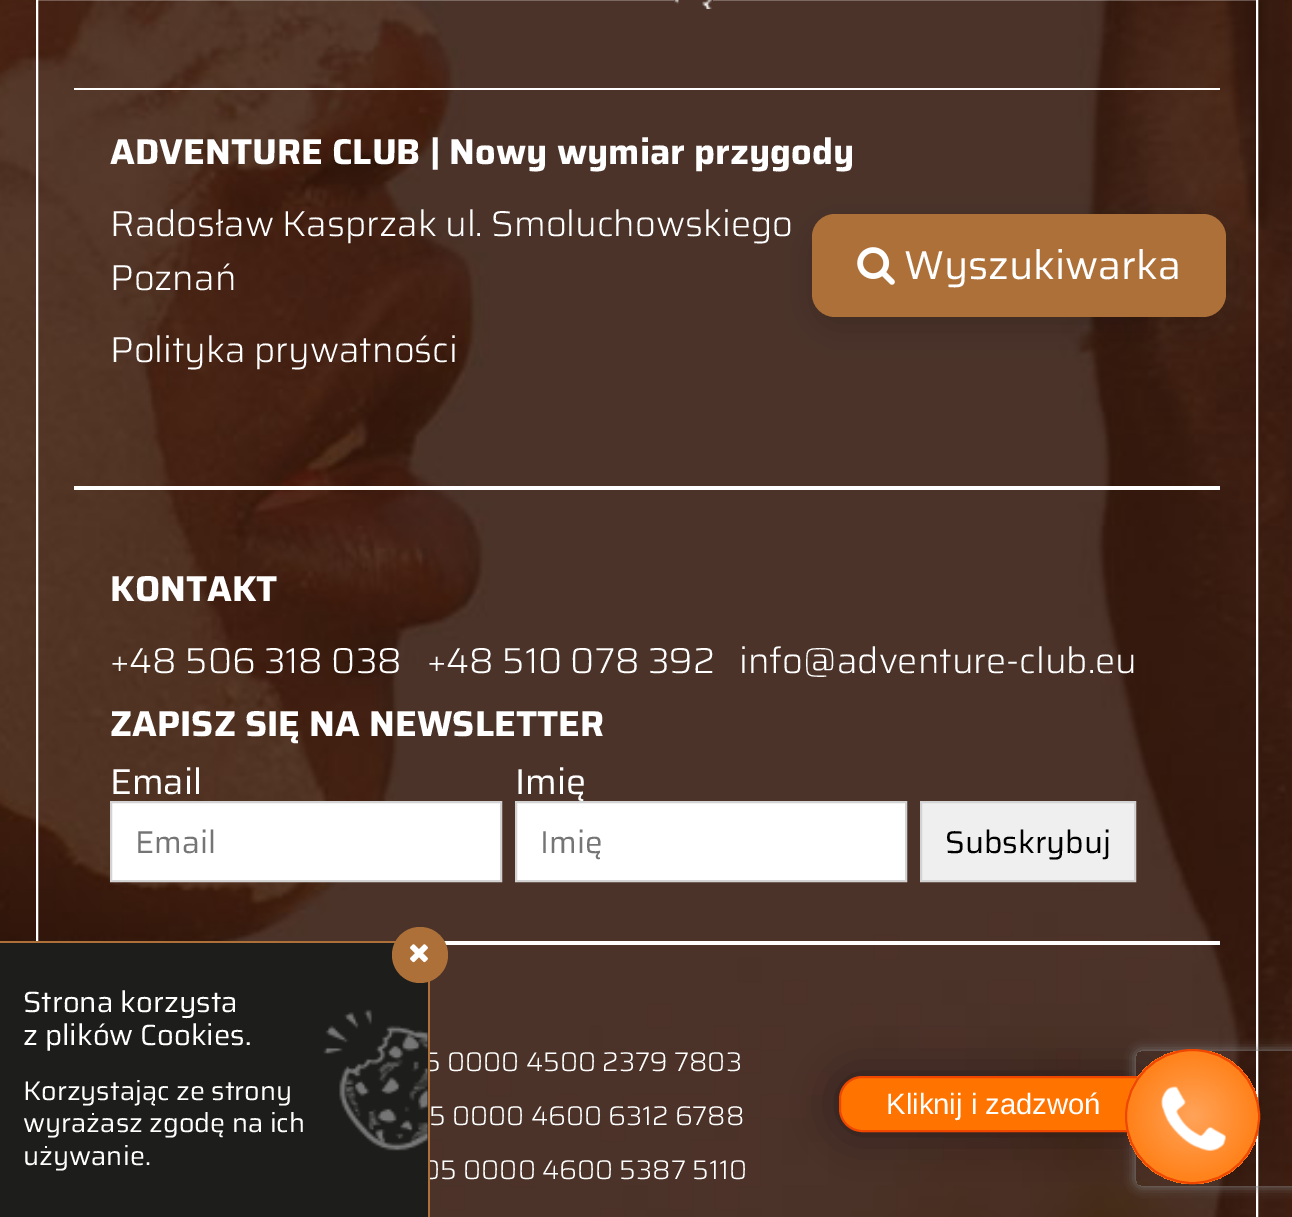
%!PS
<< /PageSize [1292 1217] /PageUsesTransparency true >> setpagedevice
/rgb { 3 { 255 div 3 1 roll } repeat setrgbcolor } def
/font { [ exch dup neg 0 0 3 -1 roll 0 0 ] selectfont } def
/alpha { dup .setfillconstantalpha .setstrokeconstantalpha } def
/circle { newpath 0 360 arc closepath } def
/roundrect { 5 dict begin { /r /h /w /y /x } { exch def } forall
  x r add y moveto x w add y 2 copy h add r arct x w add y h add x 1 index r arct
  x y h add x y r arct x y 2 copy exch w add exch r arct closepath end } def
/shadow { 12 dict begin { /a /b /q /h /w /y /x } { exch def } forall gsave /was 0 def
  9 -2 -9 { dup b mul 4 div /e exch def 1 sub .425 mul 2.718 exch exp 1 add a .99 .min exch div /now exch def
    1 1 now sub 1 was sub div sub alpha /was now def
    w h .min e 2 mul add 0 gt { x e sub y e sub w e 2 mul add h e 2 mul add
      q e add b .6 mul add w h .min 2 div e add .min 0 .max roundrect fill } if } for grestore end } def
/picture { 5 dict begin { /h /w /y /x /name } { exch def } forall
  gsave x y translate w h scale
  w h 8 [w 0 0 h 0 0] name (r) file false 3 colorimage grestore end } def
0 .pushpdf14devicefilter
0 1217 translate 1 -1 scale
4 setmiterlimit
255 255 255 rgb
0 0 1292 1217 rectfill
(img/1.rgb) 0 0 1292 1217 picture
2 setlinewidth
37 -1 1220 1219 rectstroke
(img/2.rgb) 674 0 39 9 picture
[
  [74 88 1146 2 255 255 255]
  [74 486 1146 4 255 255 255]
  [444 941 776 2 255 255 255]
] { aload pop rgb rectfill } forall
111 802 moveto 501 802 lineto 501 881 lineto 111 881 lineto closepath gsave fill grestore
211 211 211 rgb
stroke
255 255 255 rgb
516 802 moveto 906 802 lineto 906 881 lineto 516 881 lineto closepath gsave fill grestore
211 211 211 rgb
stroke
239 239 239 rgb
921 802 moveto 1135 802 lineto 1135 881 lineto 921 881 lineto closepath gsave fill grestore
211 211 211 rgb
stroke
255 255 255 rgb
445 943 775 2 rectfill
0 0 0 rgb
839 1076 309 56 23 22.5 0.4 shadow
gsave
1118 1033 moveto 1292 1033 lineto 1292 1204 lineto 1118 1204 lineto closepath 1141 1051 moveto 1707 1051 lineto 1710 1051 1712 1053 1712 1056 curveto 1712 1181 lineto 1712 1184 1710 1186 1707 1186 curveto 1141 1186 lineto 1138 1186 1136 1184 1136 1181 curveto 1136 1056 lineto 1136 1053 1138 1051 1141 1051 curveto closepath eoclip newpath
128 128 128 rgb
1136 1051 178 135 5 5.5 1 shadow
grestore
255 116 0 rgb
862 1077 moveto 1147 1077 lineto 1147 1131 lineto 862 1131 lineto 850 1131 840 1121 840 1109 curveto 840 1099 lineto 840 1087 850 1077 862 1077 curveto closepath gsave fill grestore
239 71 0 rgb
stroke
gsave
1125 1049 135 135 67.5 roundrect clip newpath
gsave 1127 1051 moveto 1258 1051 lineto 1258 1181 lineto 1127 1181 lineto closepath clip newpath 1193 1116 translate 92 92 scale
<< /ShadingType 3 /ColorSpace /DeviceRGB /Coords [0 0 0 0 0 1] /Extend [true true] /Function << /FunctionType 2 /Domain [0 1] /C0 [1 0.639 0.349] /C1 [1 0.455 0] /N 1 >> >> shfill grestore
gsave 1172 1181 moveto 1213 1181 lineto 1213 1184 lineto 1172 1184 lineto closepath clip newpath 1193 1247 translate 92 92 scale
<< /ShadingType 3 /ColorSpace /DeviceRGB /Coords [0 0 0 0 0 1] /Extend [true true] /Function << /FunctionType 2 /Domain [0 1] /C0 [1 0.639 0.349] /C1 [1 0.455 0] /N 1 >> >> shfill grestore
grestore
1192.5 1116.5 66.5 circle stroke
(img/3.rgb) 1161 1086 65 65 picture
0 0 0 rgb
812 225 414 104 23 17 0.15 shadow
173 112 56 rgb
812 214 414 103 23 roundrect fill
(img/4.rgb) 857 247 38 38 picture
0 941 396 2 rectfill
/Saira-Bold 36 font
255 255 255 rgb
110 164 moveto (ADVENTURE CLUB | Nowy wymiar przygody) show
/Saira-Light 36 font
[
  [(Radosław Kasprzak ul. Smoluchowskiego) 110 236]
  [(Poznań) 110 290]
  [(Polityka prywatności) 110 362]
] { aload pop moveto show } forall
/Saira-Bold 36 font
110 601 moveto (KONTAKT) show
/Saira-Light 36 font
[
  [(+48 506 318 038) 110 673]
  [(+48 510 078 392) 427 673]
  [(info@adventure-club.eu) 739 673]
] { aload pop moveto show } forall
/Saira-Bold 36 font
110 736 moveto (ZAPISZ SIĘ NA NEWSLETTER) show
/Saira-Regular 36 font
110 794 moveto (Email) show
/Saira-Regular 31.5 font
117 117 117 rgb
135 853 moveto (Email) show
/Saira-Regular 36 font
255 255 255 rgb
515 794 moveto (Imię) show
/Saira-Regular 31.5 font
117 117 117 rgb
540 853 moveto (Imię) show
0 0 0 rgb
945 853 moveto (Subskrybuj) show
/Saira-Light 27 font
255 255 255 rgb
[
  [(5 0000 4500 2379 7803) 424 1071]
  [(5 0000 4600 6312 6788) 429 1125]
  [(05 0000 4600 5387 5110) 422 1179]
] { aload pop moveto show } forall
/LiberationSans-Regular 29.25 font
886 1114 moveto (Kliknij i zadzwoń) show
/Saira-Regular 40.5 font
904 279 moveto (Wyszukiwarka) show
29 29 27 rgb
0 943 428 274 rectfill
(img/5.rgb) 323 1009 105 142 picture
173 112 56 rgb
428 981 2 236 rectfill
420 955 28 circle fill
(img/6.rgb) 410 944 18 19 picture
/Saira-Regular 29.25 font
255 255 255 rgb
23 1012 moveto (Strona korzysta) show
23 1045 moveto (z plików Cookies.) show
/Saira-Regular 27 font
[
  [(Korzystając ze strony) 23 1100]
  [(wyrażasz zgodę na ich) 23 1132]
  [(używanie.) 23 1165]
] { aload pop moveto show } forall
.poppdf14devicefilter showpage
